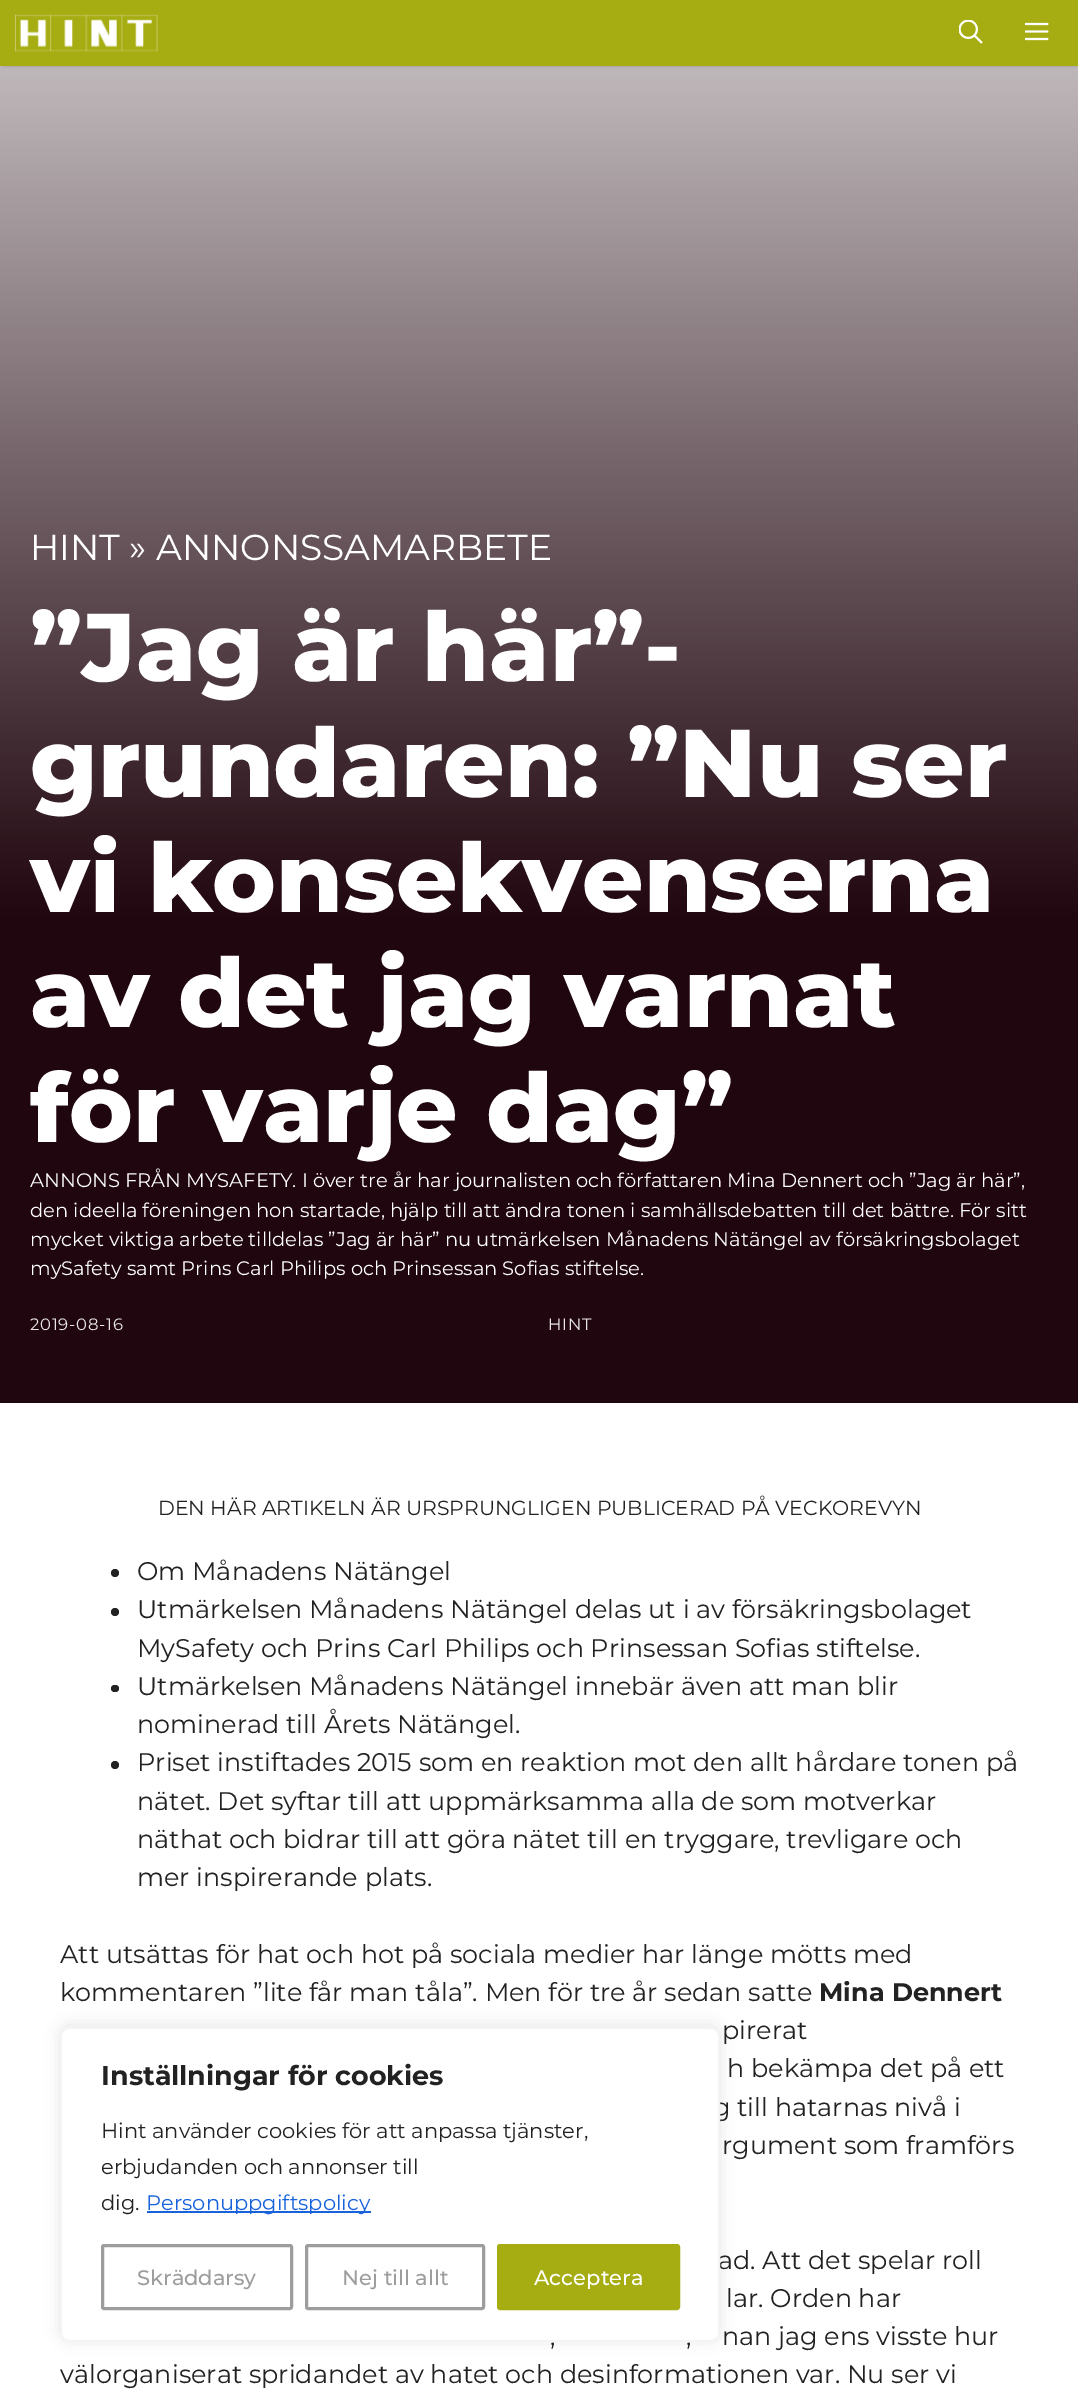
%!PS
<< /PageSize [1078 2401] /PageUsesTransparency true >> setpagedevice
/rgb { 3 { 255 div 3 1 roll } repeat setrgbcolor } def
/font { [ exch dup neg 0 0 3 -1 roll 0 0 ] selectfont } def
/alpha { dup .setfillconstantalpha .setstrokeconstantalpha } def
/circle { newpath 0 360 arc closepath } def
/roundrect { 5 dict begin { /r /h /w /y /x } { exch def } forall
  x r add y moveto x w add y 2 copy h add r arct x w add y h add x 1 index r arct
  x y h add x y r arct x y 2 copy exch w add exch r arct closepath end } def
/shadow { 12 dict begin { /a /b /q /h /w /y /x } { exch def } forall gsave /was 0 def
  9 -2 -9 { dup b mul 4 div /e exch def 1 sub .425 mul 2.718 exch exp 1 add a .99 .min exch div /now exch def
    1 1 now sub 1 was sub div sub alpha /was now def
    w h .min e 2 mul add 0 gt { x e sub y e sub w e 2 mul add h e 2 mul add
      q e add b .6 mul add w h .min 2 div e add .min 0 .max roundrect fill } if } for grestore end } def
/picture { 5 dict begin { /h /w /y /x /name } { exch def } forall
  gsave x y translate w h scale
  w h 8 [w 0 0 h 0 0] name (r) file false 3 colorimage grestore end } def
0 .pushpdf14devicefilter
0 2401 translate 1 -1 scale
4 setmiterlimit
255 255 255 rgb
0 0 1078 2401 rectfill
gsave 0 66 moveto 1078 66 lineto 1078 1403 lineto 0 1403 lineto closepath clip newpath
<< /ShadingType 2 /ColorSpace /DeviceRGB /Coords [539 1403 539 -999] /Extend [true true] /Function << /FunctionType 3 /Domain [0 1] /Functions [<< /FunctionType 2 /Domain [0 1] /C0 [0.125 0.024 0.055] /C1 [0.125 0.024 0.055] /N 1 >> << /FunctionType 2 /Domain [0 1] /C0 [0.125 0.024 0.055] /C1 [1 1 1] /N 1 >> << /FunctionType 2 /Domain [0 1] /C0 [1 1 1] /C1 [1 1 1] /N 1 >>] /Bounds [0.2 0.7] /Encode [0 1 0 1 0 1] >> >> shfill grestore
0 0 0 rgb
3 6 1073 60 0 1.5 0.2 shadow
166 173 19 rgb
0 0 1078 66 rectfill
(img/1.rgb) 15 14 143 38 picture
(img/2.rgb) 959 20 24 24 picture
(img/3.rgb) 1025 22 24 19 picture
34 34 34 rgb
115 1573 4 circle fill
115 1612 4 circle fill
111 1685 8 7 3.5 roundrect fill
115 1765 4 circle fill
172 171 171 rgb
60 2025 660 315 9 7.5 0.3 shadow
/Montserrat-Regular 36 font
255 255 255 rgb
30 560 moveto (HINT » ANNONSSAMARBETE) show
/Montserrat-ExtraBold 96 font
[
  [(”Jag är här”-) 30 681]
  [(grundaren: ”Nu ser) 30 797]
  [(vi konsekvenserna) 30 912]
  [(av det jag varnat) 30 1027]
  [(för varje dag”) 30 1142]
] { aload pop moveto show } forall
/Montserrat-Regular 19.5 font
[
  [(ANNONS FRÅN MYSAFETY. I över tre år har journalisten och författaren Mina Dennert och ”Jag är här”,) 30 1187]
  [(den ideella föreningen hon startade, hjälp till att ändra tonen i samhällsdebatten till det bättre. För sitt) 30 1217]
  [(mycket viktiga arbete tilldelas ”Jag är här” nu utmärkelsen Månadens Nätängel av försäkringsbolaget) 30 1246]
  [(mySafety samt Prins Carl Philips och Prinsessan Sofias stiftelse.) 30 1275]
] { aload pop moveto show } forall
/Montserrat-Regular 16.5 font
233 230 231 rgb
30 1330 moveto 0.75 0 (2019-08-16) ashow
548 1330 moveto 0.75 0 (HINT) ashow
/Montserrat-Regular 20.4 font
34 34 34 rgb
158 1515 moveto (DEN HÄR ARTIKELN ÄR URSPRUNGLIGEN PUBLICERAD PÅ VECKOREVYN) show
/Montserrat-Regular 25.5 font
[
  [(Om Månadens Nätängel) 137 1580]
  [(Utmärkelsen Månadens Nätängel delas ut i av försäkringsbolaget) 137 1618]
  [(MySafety och Prins Carl Philips och Prinsessan Sofias stiftelse.) 137 1657]
  [(Utmärkelsen Månadens Nätängel innebär även att man blir) 137 1695]
  [(nominerad till Årets Nätängel.) 137 1733]
  [(Priset instiftades 2015 som en reaktion mot den allt hårdare tonen på) 137 1771]
  [(nätet. Det syftar till att uppmärksamma alla de som motverkar) 137 1810]
  [(näthat och bidrar till att göra nätet till en tryggare, trevligare och) 137 1848]
  [(mer inspirerande plats.) 137 1886]
  [(Att utsättas för hat och hot på sociala medier har länge mötts med) 60 1963]
  [(kommentaren ”lite får man tåla”. Men för tre år sedan satte) 60 2001]
] { aload pop moveto show } forall
/Montserrat-Bold 25.5 font
819 2001 moveto (Mina Dennert) show
/Montserrat-Regular 25.5 font
[
  [(pirerat) 722 2039]
  [(h bekämpa det på ett) 727 2077]
  [(g till hatarnas nivå i) 713 2116]
  [(rgument som framförs) 722 2154]
  [(ad. Att det spelar roll) 718 2269]
  [(lar. Orden har) 726 2307]
  [(,) 550 2345]
  [(,) 686 2345]
  [(nan jag ens visste hur) 722 2345]
  [(välorganiserat spridandet av hatet och desinformationen var. Nu ser vi) 60 2383]
] { aload pop moveto show } forall
255 255 255 rgb
61 2028 658 313 8 roundrect gsave fill grestore
244 244 244 rgb
2 setlinewidth
stroke
/Montserrat-Bold 27 font
34 34 34 rgb
101 2085 moveto (Inställningar för cookies) show
/Montserrat-Regular 21 font
[
  [(Hint använder cookies för att anpassa tjänster,) 101 2138]
  [(erbjudanden och annonser till) 101 2174]
  [(dig.) 101 2210]
] { aload pop moveto show } forall
24 99 220 rgb
147 2211 224 2 rectfill
146 2210 moveto (Personuppgiftspolicy) show
157 157 157 rgb
3 setlinewidth
102.5 2245.5 189 63 1.5 roundrect stroke
/Montserrat-Medium 21 font
137 2285 moveto (Skräddarsy) show
306.5 2245.5 177 63 1.5 roundrect stroke
342 2285 moveto (Nej till allt) show
166 173 19 rgb
498.5 2245.5 180 63 1.5 roundrect gsave fill grestore
stroke
255 255 255 rgb
534 2285 moveto (Acceptera) show
.poppdf14devicefilter showpage
